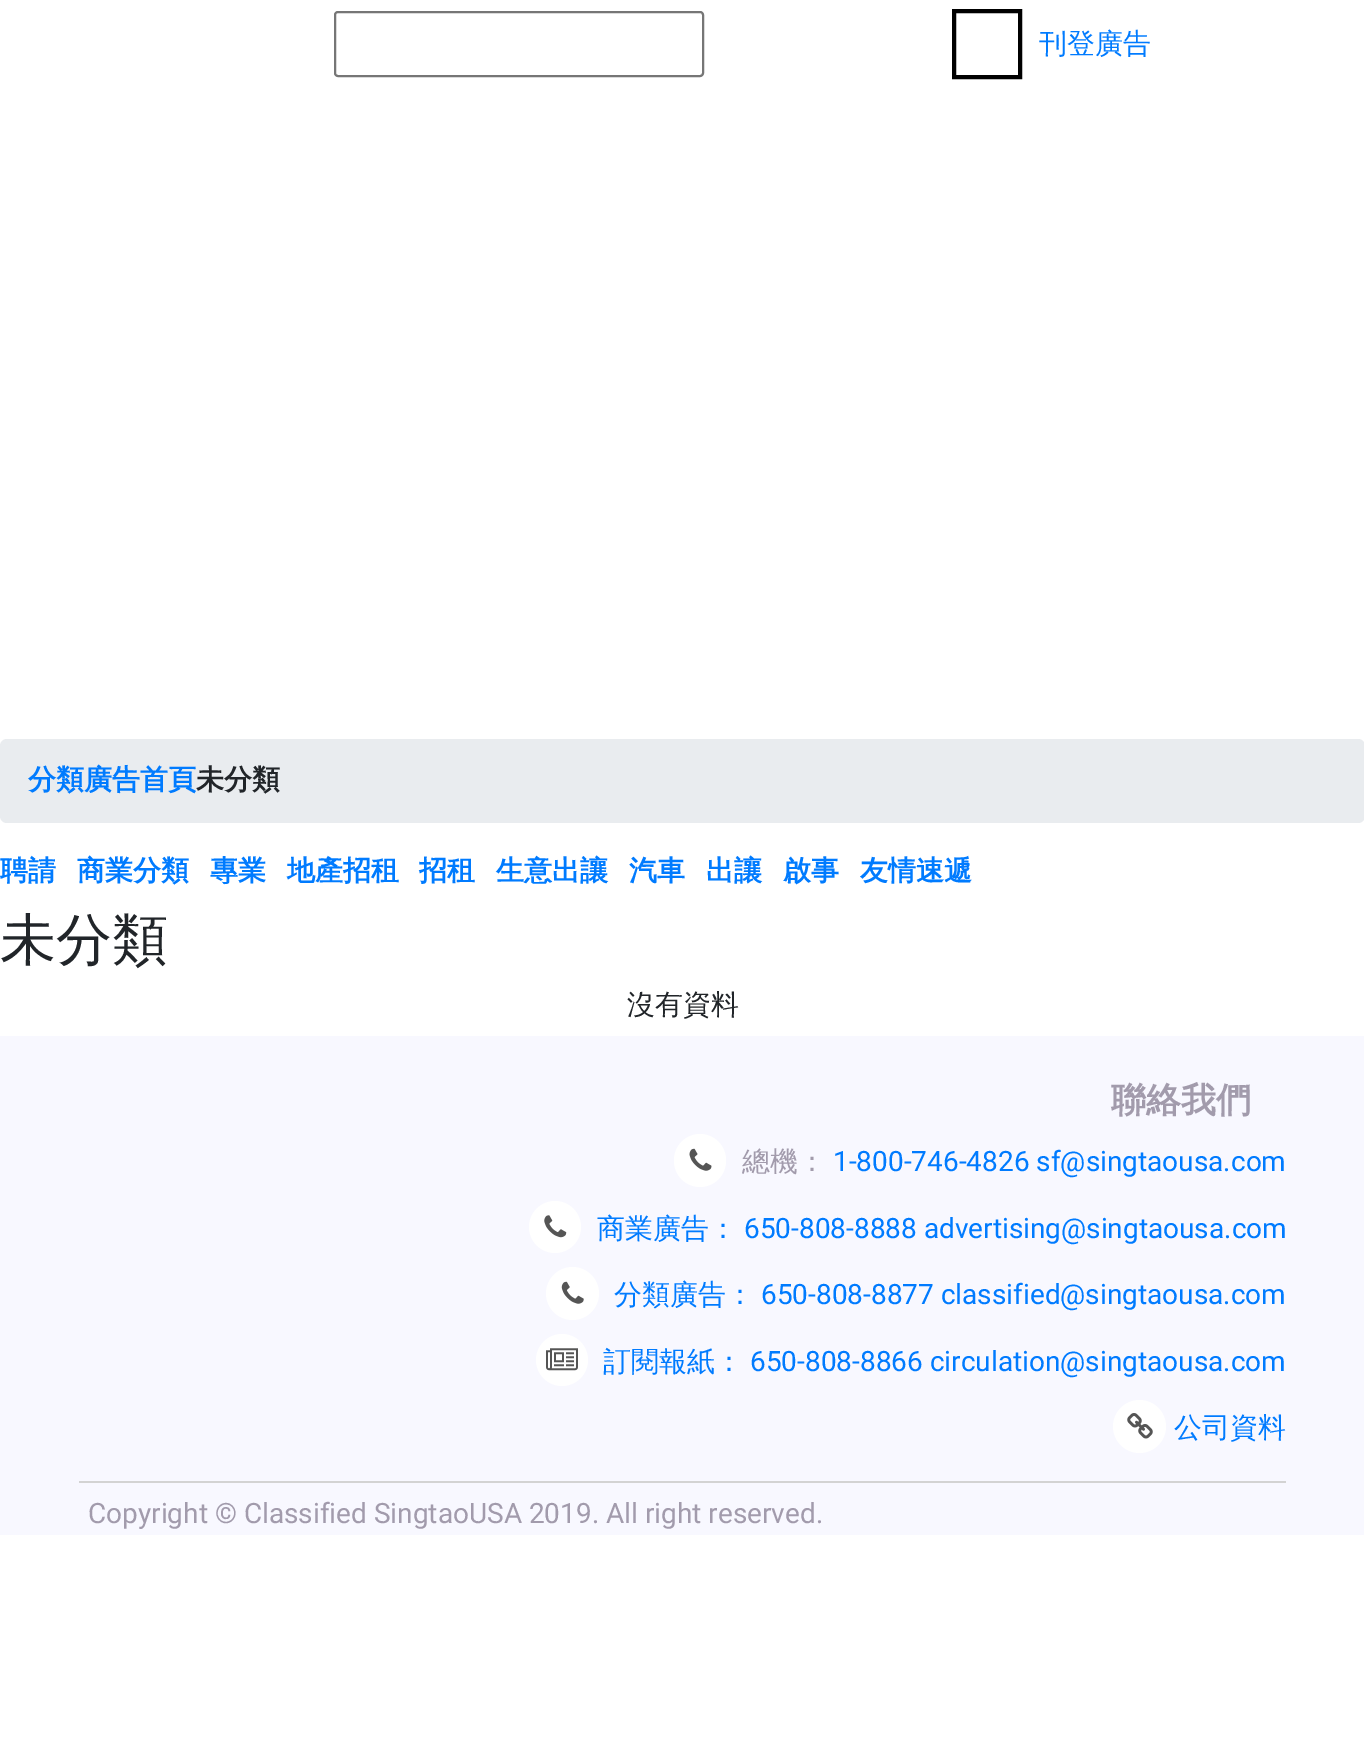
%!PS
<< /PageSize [1364 1745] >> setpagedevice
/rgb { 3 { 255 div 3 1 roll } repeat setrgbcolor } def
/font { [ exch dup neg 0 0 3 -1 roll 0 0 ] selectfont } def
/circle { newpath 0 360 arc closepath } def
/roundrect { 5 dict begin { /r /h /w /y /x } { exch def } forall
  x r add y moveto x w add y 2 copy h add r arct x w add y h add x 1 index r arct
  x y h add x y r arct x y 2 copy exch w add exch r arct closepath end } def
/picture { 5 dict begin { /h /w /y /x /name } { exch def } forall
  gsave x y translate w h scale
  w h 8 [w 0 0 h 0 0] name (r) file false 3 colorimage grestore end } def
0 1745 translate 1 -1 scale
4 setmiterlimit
255 255 255 rgb
0 0 1364 1745 rectfill
118 118 118 rgb
2 setlinewidth
335 12 368 64 3 roundrect stroke
0 0 0 rgb
4 setlinewidth
954 11 66 66 rectstroke
233 236 239 rgb
0 739 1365 84 7 roundrect fill
248 248 255 rgb
0 1036 1364 499 rectfill
255 255 255 rgb
674 1134 52 53 26 roundrect fill
(img/1.rgb) 689 1148 23 23 picture
555 1227 26 circle fill
(img/2.rgb) 544 1215 23 23 picture
572.5 1293.5 26.5 circle fill
(img/3.rgb) 561 1281 23 23 picture
562 1360 26 circle fill
(img/4.rgb) 546 1348 32 23 picture
1139.5 1426.5 26.5 circle fill
(img/5.rgb) 1127 1413 26 26 picture
211 211 211 rgb
79 1481 1207 2 rectfill
/WenQuanYiZenHei-Medium 28 font
0 123 255 rgb
1039 53 moveto (刊登廣告) show
/WenQuanYiZenHei-Bold 28 font
28 789 moveto (分類廣告首頁) show
33 37 41 rgb
196 789 moveto (未分類) show
0 123 255 rgb
[
  [(聘請) 0 880]
  [(商業分類) 77 880]
  [(專業) 210 880]
  [(地產招租) 287 880]
  [(招租) 419 880]
  [(生意出讓) 496 880]
  [(汽車) 629 880]
  [(出讓) 706 880]
  [(啟事) 783 880]
  [(友情速遞) 860 880]
] { aload pop moveto show } forall
/WenQuanYiZenHei-Medium 56 font
33 37 41 rgb
0 959 moveto (未分類) show
/WenQuanYiZenHei-Medium 28 font
627 1014 moveto (沒有資料) show
/WenQuanYiZenHei-Bold 35 font
162 155 172 rgb
1111 1112 moveto (聯絡我們) show
/WenQuanYiZenHei-Medium 28 font
742 1171 moveto (總機：) show
/Roboto-Regular 28 font
0 123 255 rgb
833 1171 moveto (1-800-746-4826 sf@singtaousa.com) show
/WenQuanYiZenHei-Medium 28 font
597 1238 moveto (商業廣告：) show
/Roboto-Regular 28 font
744 1238 moveto (650-808-8888 advertising@singtaousa.com) show
/WenQuanYiZenHei-Medium 28 font
614 1304 moveto (分類廣告：) show
/Roboto-Regular 28 font
761 1304 moveto (650-808-8877 classified@singtaousa.com) show
/WenQuanYiZenHei-Medium 28 font
603 1371 moveto (訂閱報紙：) show
/Roboto-Regular 28 font
750 1371 moveto (650-808-8866 circulation@singtaousa.com) show
/WenQuanYiZenHei-Medium 28 font
1174 1437 moveto (公司資料) show
/Roboto-Regular 28 font
162 155 172 rgb
88 1523 moveto (Copyright © Classified SingtaoUSA 2019. All right reserved.) show
showpage
